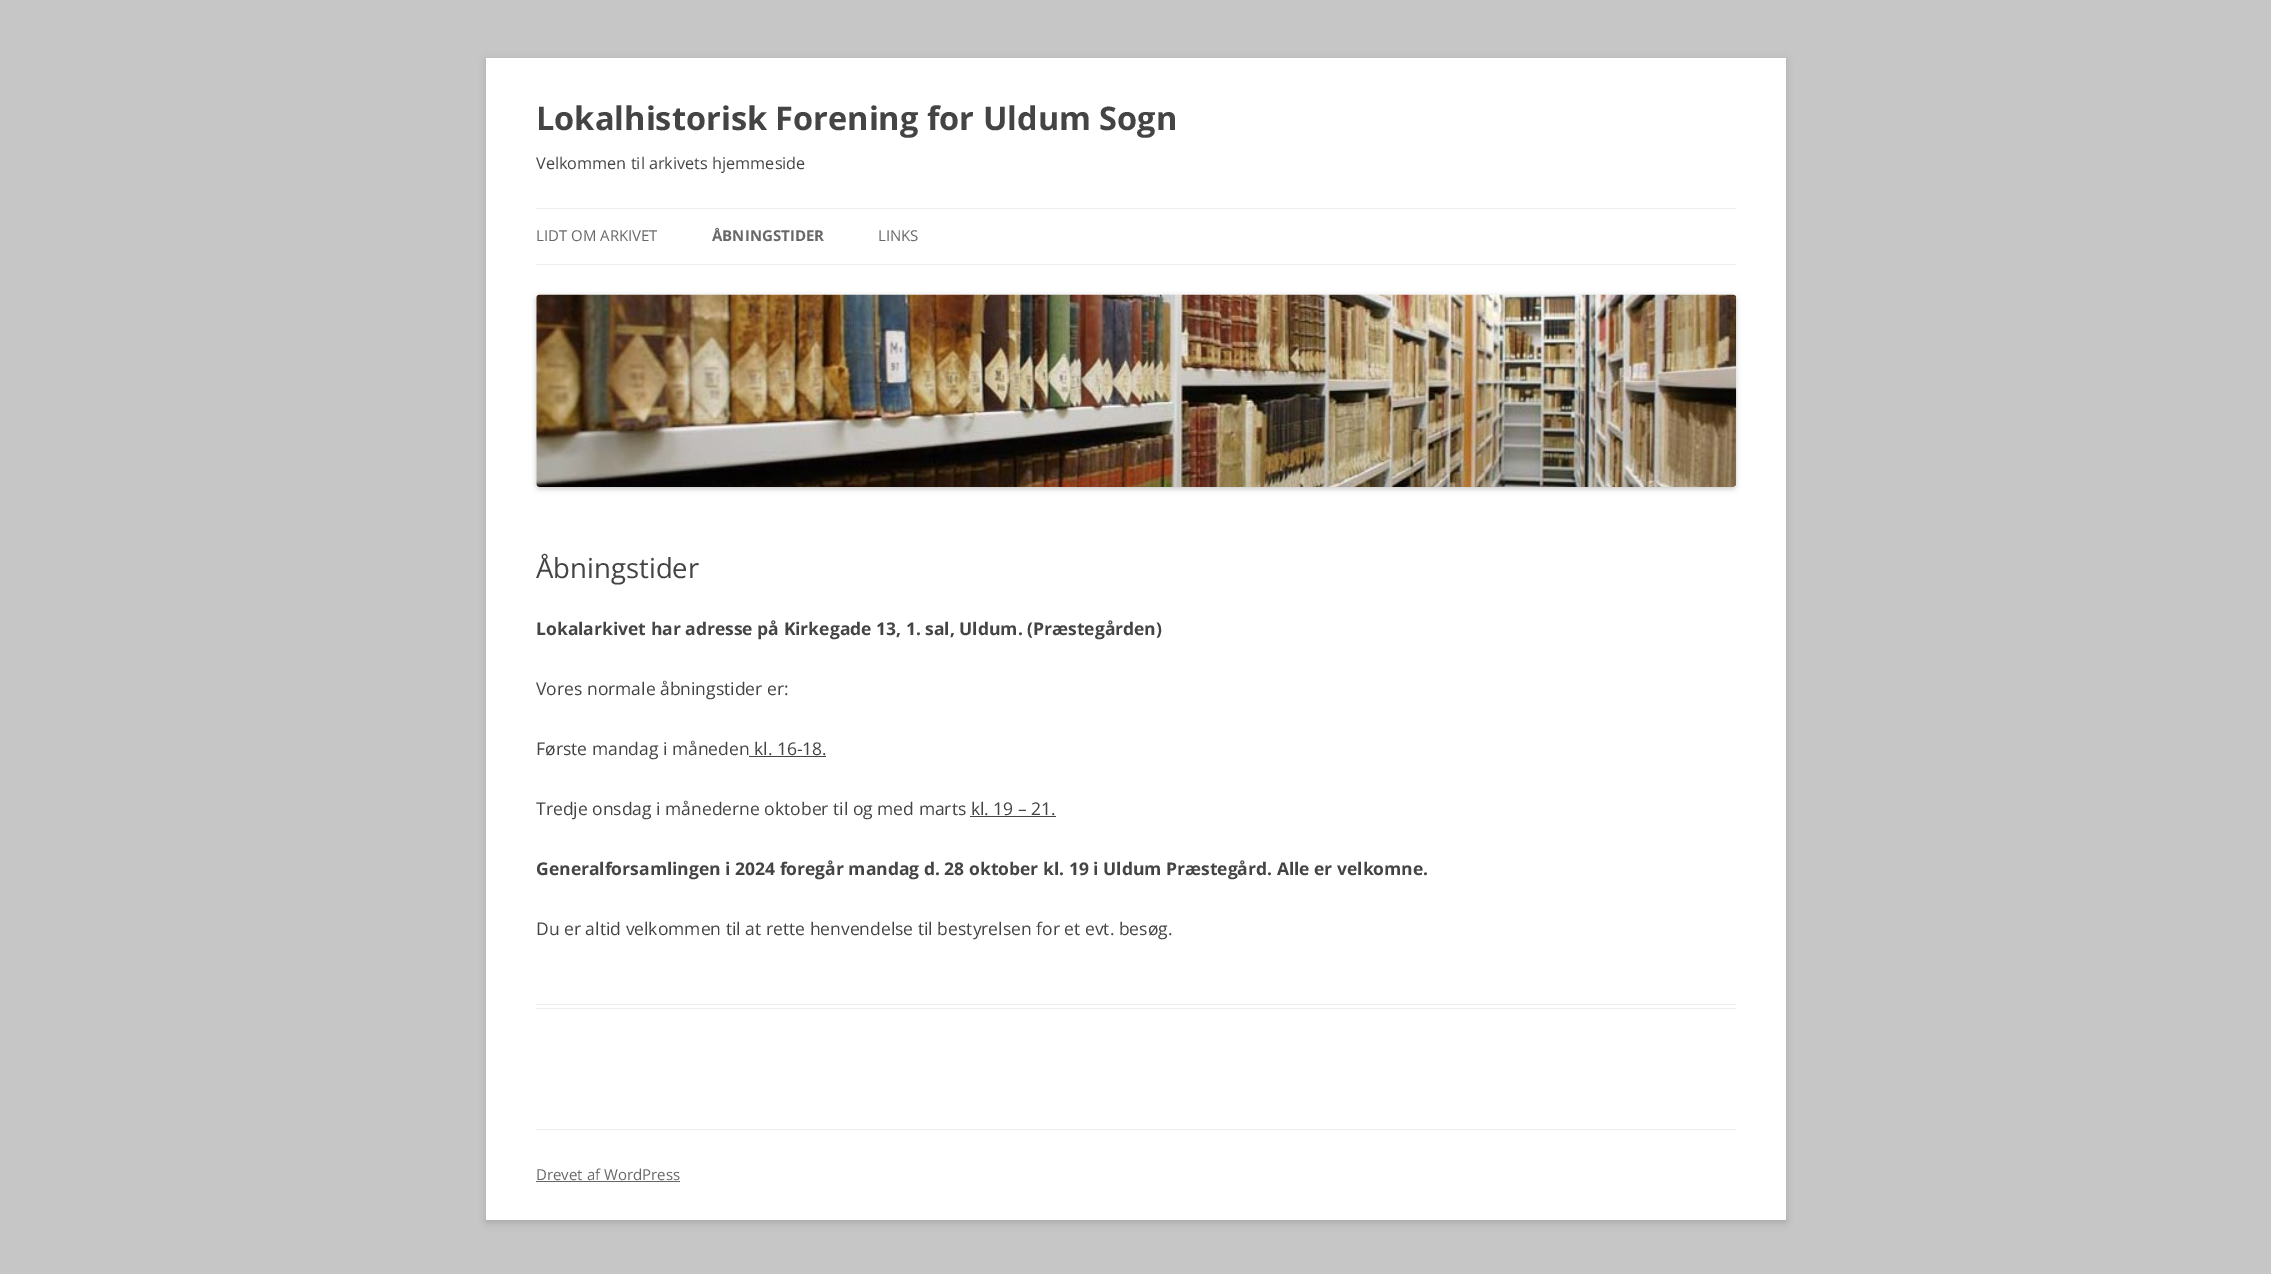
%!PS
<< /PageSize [2271 1274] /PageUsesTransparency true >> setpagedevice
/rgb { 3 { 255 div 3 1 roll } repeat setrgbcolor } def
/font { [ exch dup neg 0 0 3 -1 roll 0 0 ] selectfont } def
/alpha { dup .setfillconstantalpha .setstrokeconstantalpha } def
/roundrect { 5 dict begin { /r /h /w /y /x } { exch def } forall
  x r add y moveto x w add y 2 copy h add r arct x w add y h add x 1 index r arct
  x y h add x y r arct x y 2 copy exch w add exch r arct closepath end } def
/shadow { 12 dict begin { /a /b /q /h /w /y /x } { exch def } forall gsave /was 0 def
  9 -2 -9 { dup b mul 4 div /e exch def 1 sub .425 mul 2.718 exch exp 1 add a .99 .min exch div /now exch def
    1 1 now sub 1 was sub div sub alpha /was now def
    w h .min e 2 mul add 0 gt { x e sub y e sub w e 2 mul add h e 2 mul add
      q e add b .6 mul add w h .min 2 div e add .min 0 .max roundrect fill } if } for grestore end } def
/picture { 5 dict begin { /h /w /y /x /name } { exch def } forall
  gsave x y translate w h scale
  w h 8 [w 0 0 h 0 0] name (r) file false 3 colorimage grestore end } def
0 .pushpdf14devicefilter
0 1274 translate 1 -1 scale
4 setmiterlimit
198 198 198 rgb
0 0 2271 1274 rectfill
100 100 100 rgb
486 60 1300 1163 0 4 0.3 shadow
[
  [486 58 1300 1162 255 255 255]
  [536 208 1200 1 237 237 237]
  [536 264 1200 1 237 237 237]
] { aload pop rgb rectfill } forall
0 0 0 rgb
536 296 1200 193 4 2.5 0.2 shadow
(img/1.rgb) 536 294 1201 193 picture
[
  [536 1004 1200 1 237 237 237]
  [536 1008 1200 1 237 237 237]
  [749 756 77 1 68 68 68]
  [970 816 86 1 68 68 68]
  [536 1129 1200 1 237 237 237]
  [536 1181 144 1 104 104 104]
] { aload pop rgb rectfill } forall
/OpenSans-Bold 32.5 font
68 68 68 rgb
536 130 moveto (Lokalhistorisk Forening for Uldum Sogn) show
/OpenSans-Regular 16.25 font
536 169 moveto (Velkommen til arkivets hjemmeside) show
/OpenSans-Regular 15 font
104 104 104 rgb
536 241 moveto (LIDT OM ARKIVET) show
/OpenSans-Bold 15 font
712 241 moveto (ÅBNINGSTIDER) show
/OpenSans-Regular 15 font
878 241 moveto (LINKS) show
/OpenSans-Regular 27.5 font
68 68 68 rgb
536 578 moveto (Åbningstider) show
/OpenSans-Bold 17.5 font
536 635 moveto (Lokalarkivet har adresse på Kirkegade 13, 1. sal, Uldum. \(Præstegården\)) show
/OpenSans-Regular 17.5 font
[
  [(Vores normale åbningstider er:) 536 695]
  [(Første mandag i måneden kl. 16-18.) 536 755]
  [(Tredje onsdag i månederne oktober til og med marts kl. 19 – 21.) 536 815]
] { aload pop moveto show } forall
/OpenSans-Bold 17.5 font
536 875 moveto (Generalforsamlingen i 2024 foregår mandag d. 28 oktober kl. 19 i Uldum Præstegård. Alle er velkomne.) show
/OpenSans-Regular 17.5 font
536 935 moveto (Du er altid velkommen til at rette henvendelse til bestyrelsen for et evt. besøg.) show
/OpenSans-Regular 15 font
104 104 104 rgb
536 1180 moveto (Drevet af WordPress) show
.poppdf14devicefilter showpage
